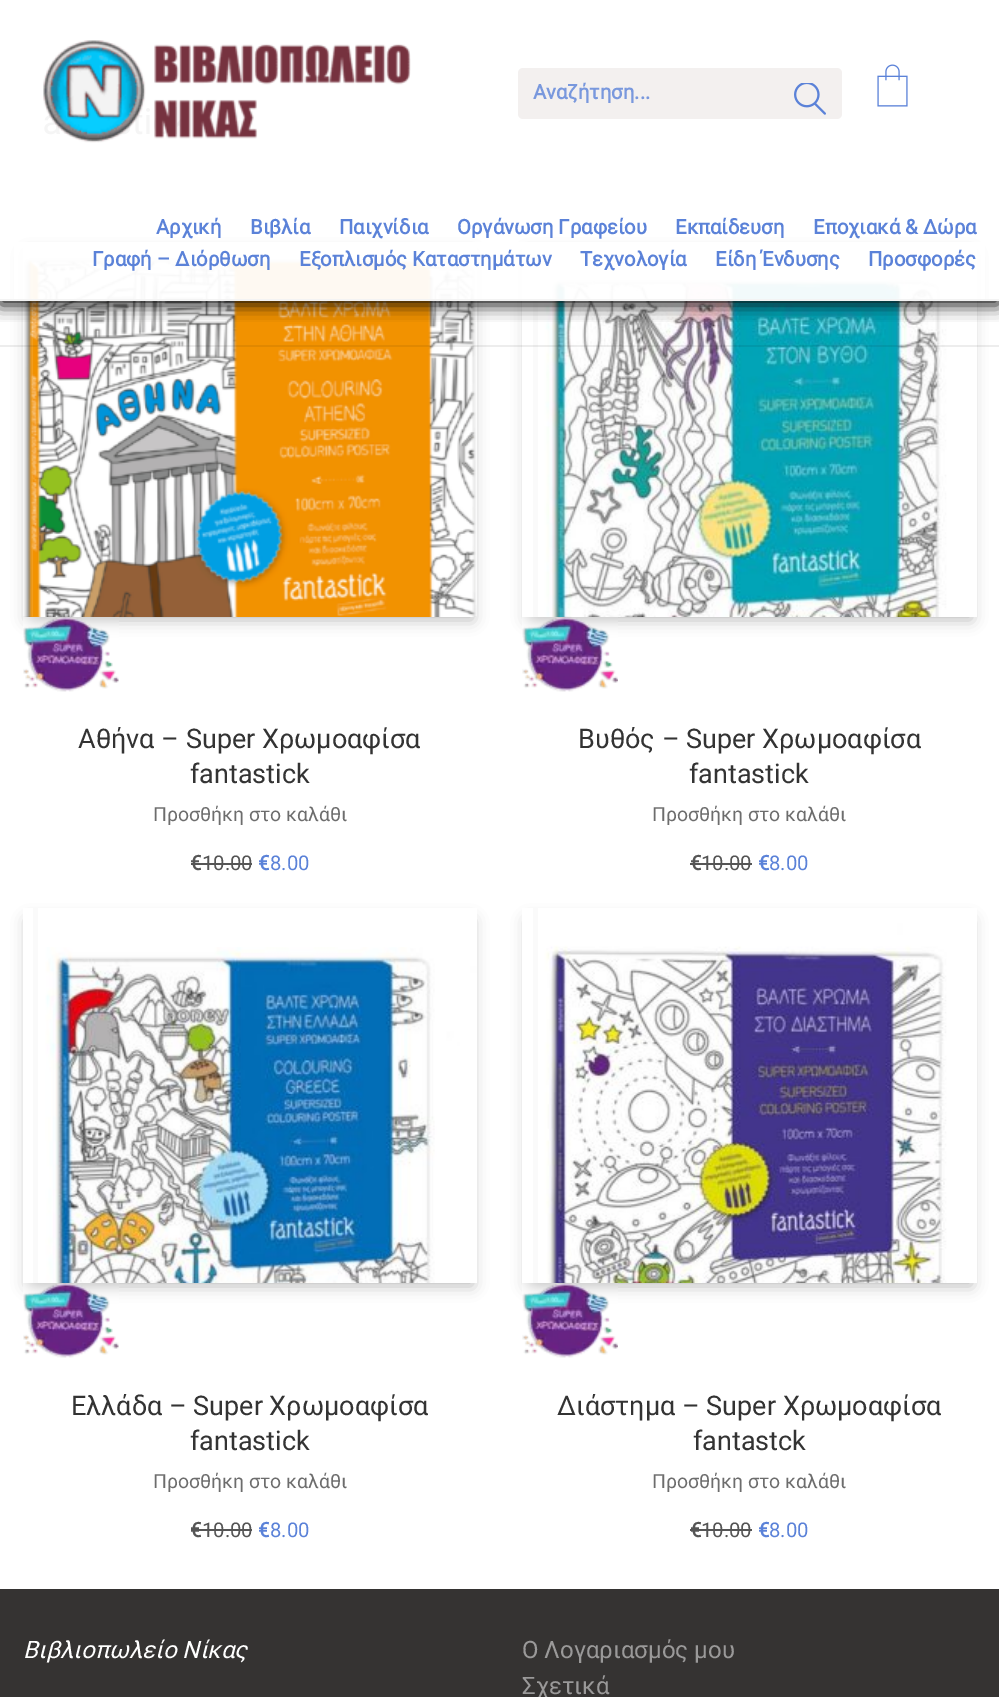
%!PS
<< /PageSize [999 1697] /PageUsesTransparency true >> setpagedevice
/rgb { 3 { 255 div 3 1 roll } repeat setrgbcolor } def
/font { [ exch dup neg 0 0 3 -1 roll 0 0 ] selectfont } def
/alpha { dup .setfillconstantalpha .setstrokeconstantalpha } def
/roundrect { 5 dict begin { /r /h /w /y /x } { exch def } forall
  x r add y moveto x w add y 2 copy h add r arct x w add y h add x 1 index r arct
  x y h add x y r arct x y 2 copy exch w add exch r arct closepath end } def
/shadow { 12 dict begin { /a /b /q /h /w /y /x } { exch def } forall gsave /was 0 def
  9 -2 -9 { dup b mul 4 div /e exch def 1 sub .425 mul 2.718 exch exp 1 add a .99 .min exch div /now exch def
    1 1 now sub 1 was sub div sub alpha /was now def
    w h .min e 2 mul add 0 gt { x e sub y e sub w e 2 mul add h e 2 mul add
      q e add b .6 mul add w h .min 2 div e add .min 0 .max roundrect fill } if } for grestore end } def
/picture { 5 dict begin { /h /w /y /x /name } { exch def } forall
  gsave x y translate w h scale
  w h 8 [w 0 0 h 0 0] name (r) file false 3 colorimage grestore end } def
0 .pushpdf14devicefilter
0 1697 translate 1 -1 scale
4 setmiterlimit
255 255 255 rgb
0 0 999 1697 rectfill
gsave
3 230 moveto 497 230 lineto 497 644 lineto 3 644 lineto closepath 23 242 moveto 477 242 lineto 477 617 lineto 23 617 lineto closepath eoclip newpath
0 0 0 rgb
27 254 446 366 0 7.5 0.25 shadow
grestore
(img/4.rgb) 23 257 454 360 picture
gsave
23 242 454 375 rectclip
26 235 moveto 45 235 lineto 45 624 lineto 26 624 lineto closepath 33 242 moveto 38 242 lineto 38 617 lineto 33 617 lineto closepath eoclip newpath
33 242 5 375 0 2 0.25 shadow
grestore
gsave
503 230 moveto 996 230 lineto 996 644 lineto 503 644 lineto closepath 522 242 moveto 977 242 lineto 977 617 lineto 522 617 lineto closepath eoclip newpath
0 0 0 rgb
527 254 445 366 0 7.5 0.25 shadow
grestore
(img/6.rgb) 522 257 455 360 picture
250 250 250 rgb
533 242 5 375 rectfill
0.07 alpha
0 0 0 rgb
0 345 999 2 rectfill
gsave
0 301 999 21 rectclip
1 alpha
9 9 9 rgb
0 5 999 300 0 8.5 0.95 shadow
grestore
0.95 alpha
255 255 255 rgb
14 242 971 57 rectfill
1 alpha
243 243 243 rgb
0 299 999 2 rectfill
(img/1.rgb) 43 40 368 103 picture
243 240 239 rgb
518 68 324 51 5 roundrect fill
(img/2.rgb) 794 83 32 32 picture
(img/3.rgb) 877 64 31 43 picture
(img/5.rgb) 23 616 96 76 picture
85 85 85 rgb
191 863 10 2 rectfill
201 863 51 2 rectfill
(img/7.rgb) 522 616 96 76 picture
690 863 11 2 rectfill
701 863 51 2 rectfill
gsave
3 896 moveto 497 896 lineto 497 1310 lineto 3 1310 lineto closepath 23 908 moveto 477 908 lineto 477 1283 lineto 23 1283 lineto closepath eoclip newpath
0 0 0 rgb
27 920 446 366 0 7.5 0.25 shadow
grestore
(img/8.rgb) 23 947 454 336 picture
250 250 250 rgb
33 908 5 375 rectfill
(img/9.rgb) 23 1282 96 76 picture
85 85 85 rgb
191 1529 10 2 rectfill
201 1529 51 2 rectfill
gsave
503 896 moveto 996 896 lineto 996 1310 lineto 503 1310 lineto closepath 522 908 moveto 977 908 lineto 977 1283 lineto 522 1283 lineto closepath eoclip newpath
0 0 0 rgb
527 920 445 366 0 7.5 0.25 shadow
grestore
(img/10.rgb) 522 923 455 360 picture
250 250 250 rgb
533 908 5 375 rectfill
(img/11.rgb) 522 1282 96 76 picture
[
  [690 1529 11 2 85 85 85]
  [701 1529 51 2 85 85 85]
  [0 1589 999 108 53 51 50]
] { aload pop rgb rectfill } forall
/Roboto-Bold 20.25 font
121 152 221 rgb
533 99 moveto (Αναζήτηση...) show
91 130 216 rgb
[
  [(Αρχική) 156 234]
  [(Βιβλία) 250 234]
  [(Παιχνίδια) 339 234]
  [(Οργάνωση Γραφείου) 457 234]
  [(Εκπαίδευση) 675 234]
  [(Εποχιακά & Δώρα) 813 234]
  [(Γραφή – Διόρθωση) 92 266]
  [(Εξοπλισμός Καταστημάτων) 299 266]
  [(Τεχνολογία) 580 266]
  [(Είδη Ένδυσης) 715 266]
  [(Προσφορές) 868 266]
] { aload pop moveto show } forall
/Roboto-Regular 27 font
51 51 51 rgb
78 748 moveto (Αθήνα – Super Χρωμοαφίσα) show
190 783 moveto (fantastick) show
/Roboto-Regular 19.5 font
109 109 109 rgb
153 821 moveto (Προσθήκη στο καλάθι) show
/Roboto-Bold 20.25 font
85 85 85 rgb
190 870 moveto (€) show
/Roboto-Regular 20.25 font
202 870 moveto (10.00) show
/Roboto-Bold 20.25 font
91 130 216 rgb
258 870 moveto (€) show
/Roboto-Regular 20.25 font
270 870 moveto (8.00) show
/Roboto-Regular 27 font
51 51 51 rgb
578 748 moveto (Βυθός – Super Χρωμοαφίσα) show
689 783 moveto (fantastick) show
/Roboto-Regular 19.5 font
109 109 109 rgb
652 821 moveto (Προσθήκη στο καλάθι) show
/Roboto-Bold 20.25 font
85 85 85 rgb
690 870 moveto (€) show
/Roboto-Regular 20.25 font
701 870 moveto (10.00) show
/Roboto-Bold 20.25 font
91 130 216 rgb
758 870 moveto (€) show
/Roboto-Regular 20.25 font
769 870 moveto (8.00) show
/Roboto-Regular 27 font
51 51 51 rgb
71 1415 moveto (Ελλάδα – Super Χρωμοαφίσα) show
190 1450 moveto (fantastick) show
/Roboto-Regular 19.5 font
109 109 109 rgb
153 1488 moveto (Προσθήκη στο καλάθι) show
/Roboto-Bold 20.25 font
85 85 85 rgb
190 1537 moveto (€) show
/Roboto-Regular 20.25 font
202 1537 moveto (10.00) show
/Roboto-Bold 20.25 font
91 130 216 rgb
258 1537 moveto (€) show
/Roboto-Regular 20.25 font
270 1537 moveto (8.00) show
/Roboto-Regular 27 font
51 51 51 rgb
557 1415 moveto (Διάστημα – Super Χρωμοαφίσα) show
693 1450 moveto (fantastck) show
/Roboto-Regular 19.5 font
109 109 109 rgb
652 1488 moveto (Προσθήκη στο καλάθι) show
/Roboto-Bold 20.25 font
85 85 85 rgb
690 1537 moveto (€) show
/Roboto-Regular 20.25 font
701 1537 moveto (10.00) show
/Roboto-Bold 20.25 font
91 130 216 rgb
758 1537 moveto (€) show
/Roboto-Regular 20.25 font
769 1537 moveto (8.00) show
/Roboto-Italic 24 font
255 255 255 rgb
23 1658 moveto (Βιβλιοπωλείο Νίκας) show
/Roboto-Regular 24 font
154 153 153 rgb
522 1658 moveto (Ο Λογαριασμός μου) show
522 1694 moveto (Σχετικά) show
.poppdf14devicefilter showpage
